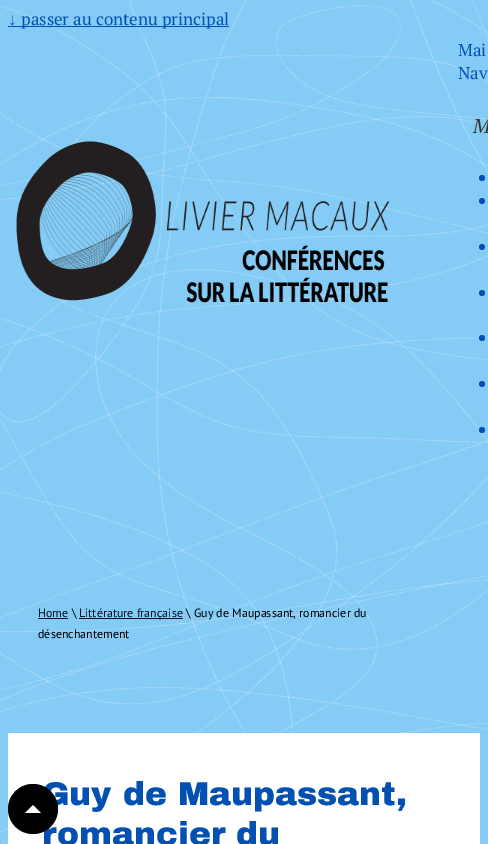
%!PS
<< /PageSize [488 844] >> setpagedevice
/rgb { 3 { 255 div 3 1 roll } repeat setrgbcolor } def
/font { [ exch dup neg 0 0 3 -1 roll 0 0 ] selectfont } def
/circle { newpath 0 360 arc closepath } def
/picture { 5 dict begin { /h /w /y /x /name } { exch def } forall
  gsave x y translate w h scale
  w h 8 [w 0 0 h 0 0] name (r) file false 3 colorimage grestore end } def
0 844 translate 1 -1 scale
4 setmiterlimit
132 203 245 rgb
0 0 488 844 rectfill
(img/1.rgb) 0 0 488 844 picture
2 81 178 rgb
8 26 221 1 rectfill
482 178 3 circle fill
482 201 3 circle fill
482 247 3 circle fill
482 293 3 circle fill
482 338 3 circle fill
482 384 3 circle fill
482 430 3 circle fill
(img/2.rgb) 16 141 374 162 picture
[
  [38 618 30 1 0 19 42]
  [79 618 104 1 0 19 42]
  [8 733 472 111 255 255 255]
] { aload pop rgb rectfill } forall
/LiberationSerif-Regular 17 font
2 81 178 rgb
8 25 moveto (↓) show
/PTSerif-Regular 17 font
[
  [(passer au contenu principal) 21 25]
  [(Mai) 458 56]
  [(Nav) 458 79]
] { aload pop moveto show } forall
/PTSerif-Italic 20 font
51 51 51 rgb
473 133 moveto (M) show
/PTSans-Regular 12 font
0 19 42 rgb
38 617 moveto (Home) show
0 0 0 rgb
72 617 moveto (\\) show
0 19 42 rgb
79 617 moveto (Littérature française) show
0 0 0 rgb
186 617 moveto (\\ Guy de Maupassant, romancier du) show
38 638 moveto (désenchantement) show
/ArchivoBlack-Black 33 font
2 81 178 rgb
42 805 moveto (Guy de Maupassant,) show
42 845 moveto (romancier du) show
0 0 0 rgb
33 809 25 circle fill
255 255 255 rgb
41 813 moveto 25 813 lineto 33 805 lineto closepath fill
showpage
